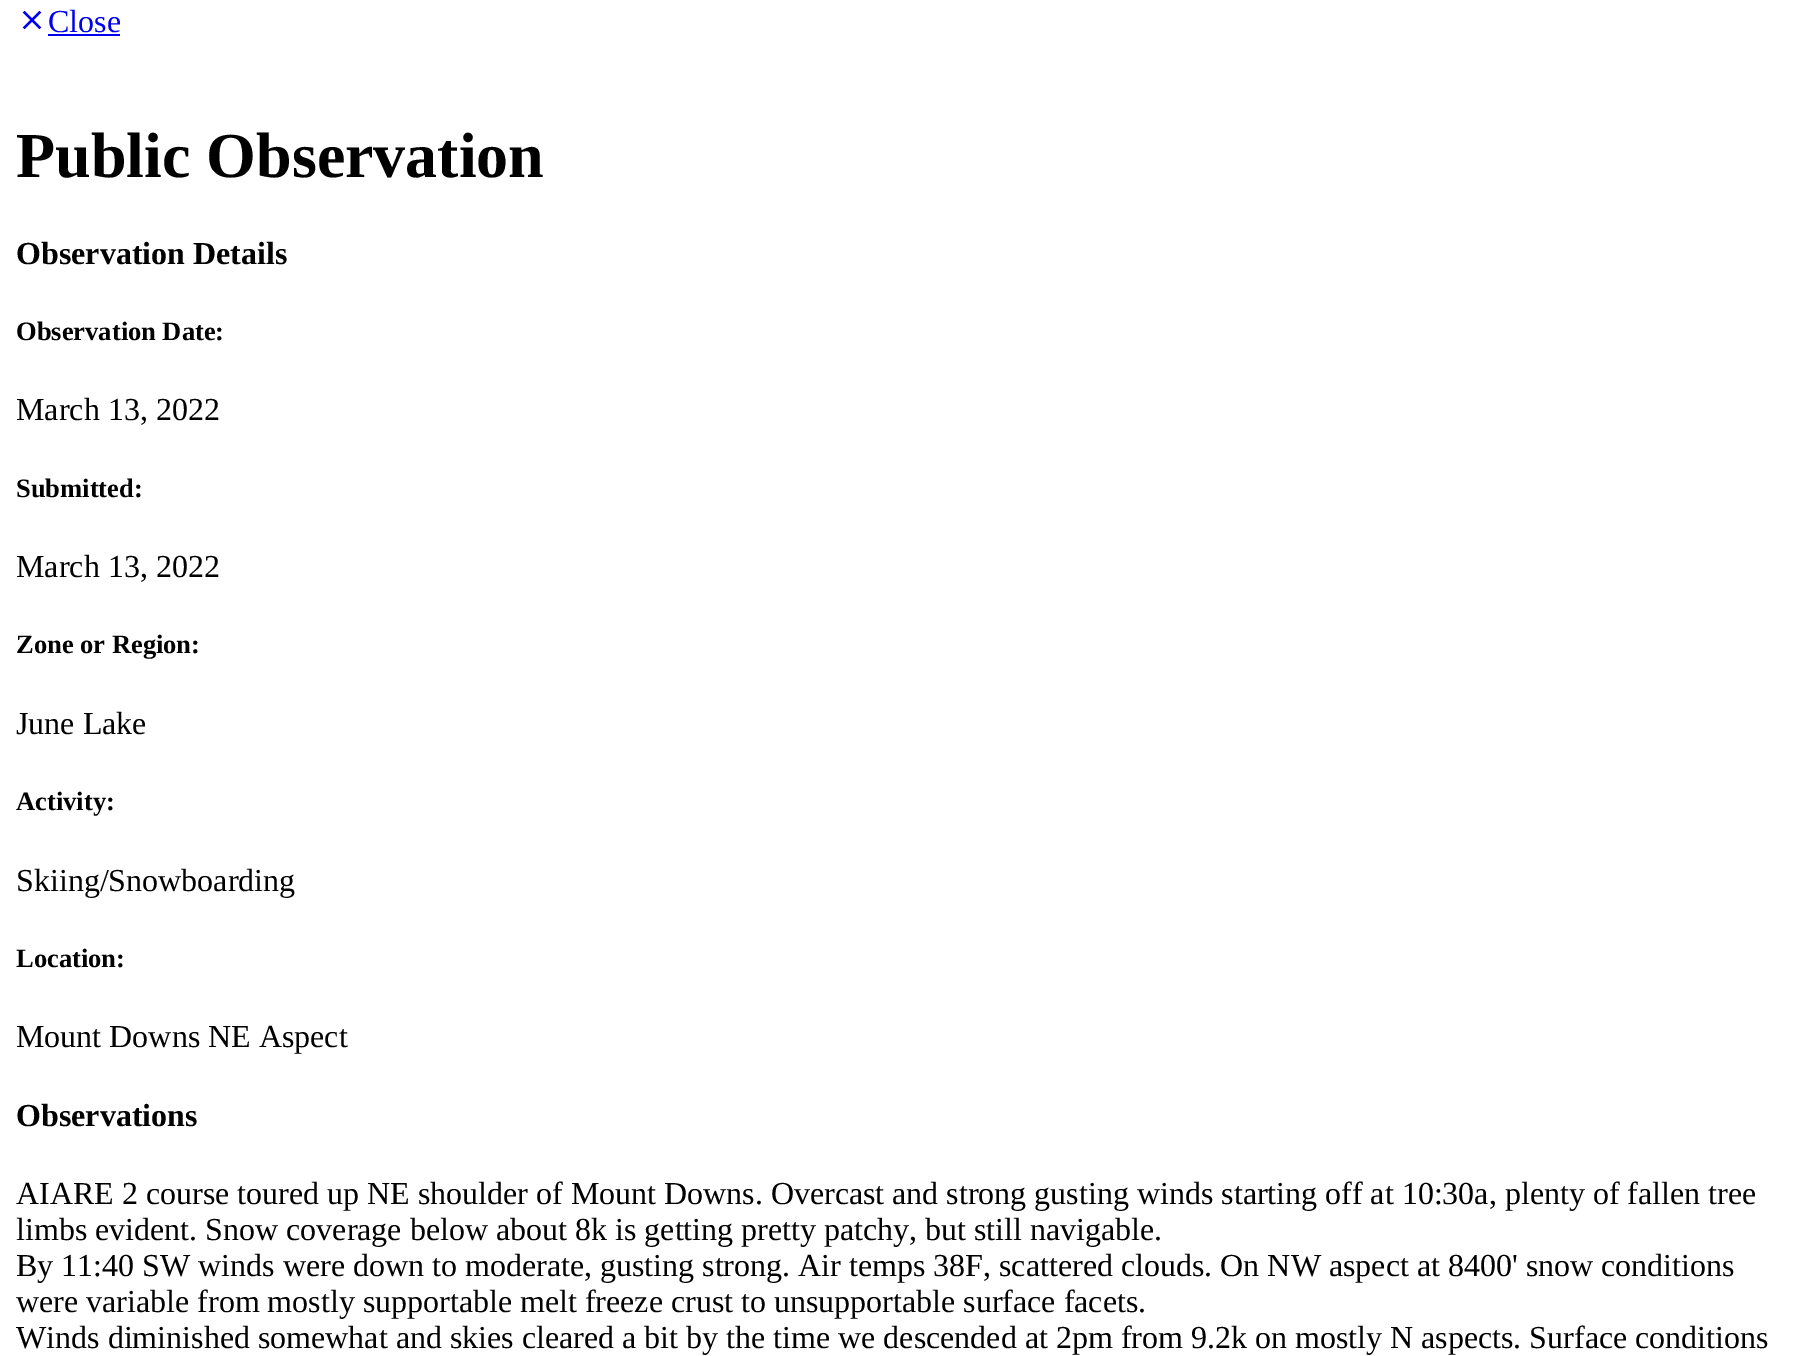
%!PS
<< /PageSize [1809 1356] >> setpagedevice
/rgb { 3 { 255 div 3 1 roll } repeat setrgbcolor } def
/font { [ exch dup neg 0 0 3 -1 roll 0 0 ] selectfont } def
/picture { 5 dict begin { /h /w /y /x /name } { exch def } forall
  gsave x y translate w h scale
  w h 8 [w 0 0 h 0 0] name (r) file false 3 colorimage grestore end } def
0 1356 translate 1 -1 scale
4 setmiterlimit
255 255 255 rgb
0 0 1809 1356 rectfill
(img/1.rgb) 22 10 20 20 picture
0 0 238 rgb
48 34 72 2 rectfill
/LiberationSerif-Regular 32 font
48 32 moveto (Close) show
/LiberationSerif-Bold 64 font
0 0 0 rgb
16 177 moveto (Public Observation) show
/LiberationSerif-Bold 32 font
16 264 moveto (Observation Details) show
/LiberationSerif-Bold 26.5 font
16 340 moveto (Observation Date:) show
/LiberationSerif-Regular 32 font
16 420 moveto (March 13, 2022) show
/LiberationSerif-Bold 26.5 font
16 497 moveto (Submitted:) show
/LiberationSerif-Regular 32 font
16 577 moveto (March 13, 2022) show
/LiberationSerif-Bold 26.5 font
16 653 moveto (Zone or Region:) show
/LiberationSerif-Regular 32 font
16 734 moveto (June Lake) show
/LiberationSerif-Bold 26.5 font
16 810 moveto (Activity:) show
/LiberationSerif-Regular 32 font
16 891 moveto (Skiing/Snowboarding) show
/LiberationSerif-Bold 26.5 font
16 967 moveto (Location:) show
/LiberationSerif-Regular 32 font
16 1047 moveto (Mount Downs NE Aspect) show
/LiberationSerif-Bold 32 font
16 1126 moveto (Observations) show
/LiberationSerif-Regular 32 font
[
  [(AIARE 2 course toured up NE shoulder of Mount Downs. Overcast and strong gusting winds starting off at 10:30a, plenty of fallen tree) 16 1204]
  [(limbs evident. Snow coverage below about 8k is getting pretty patchy, but still navigable.) 16 1240]
  [(By 11:40 SW winds were down to moderate, gusting strong. Air temps 38F, scattered clouds. On NW aspect at 8400' snow conditions) 16 1276]
  [(were variable from mostly supportable melt freeze crust to unsupportable surface facets.) 16 1312]
  [(Winds diminished somewhat and skies cleared a bit by the time we descended at 2pm from 9.2k on mostly N aspects. Surface conditions) 16 1348]
] { aload pop moveto show } forall
showpage
